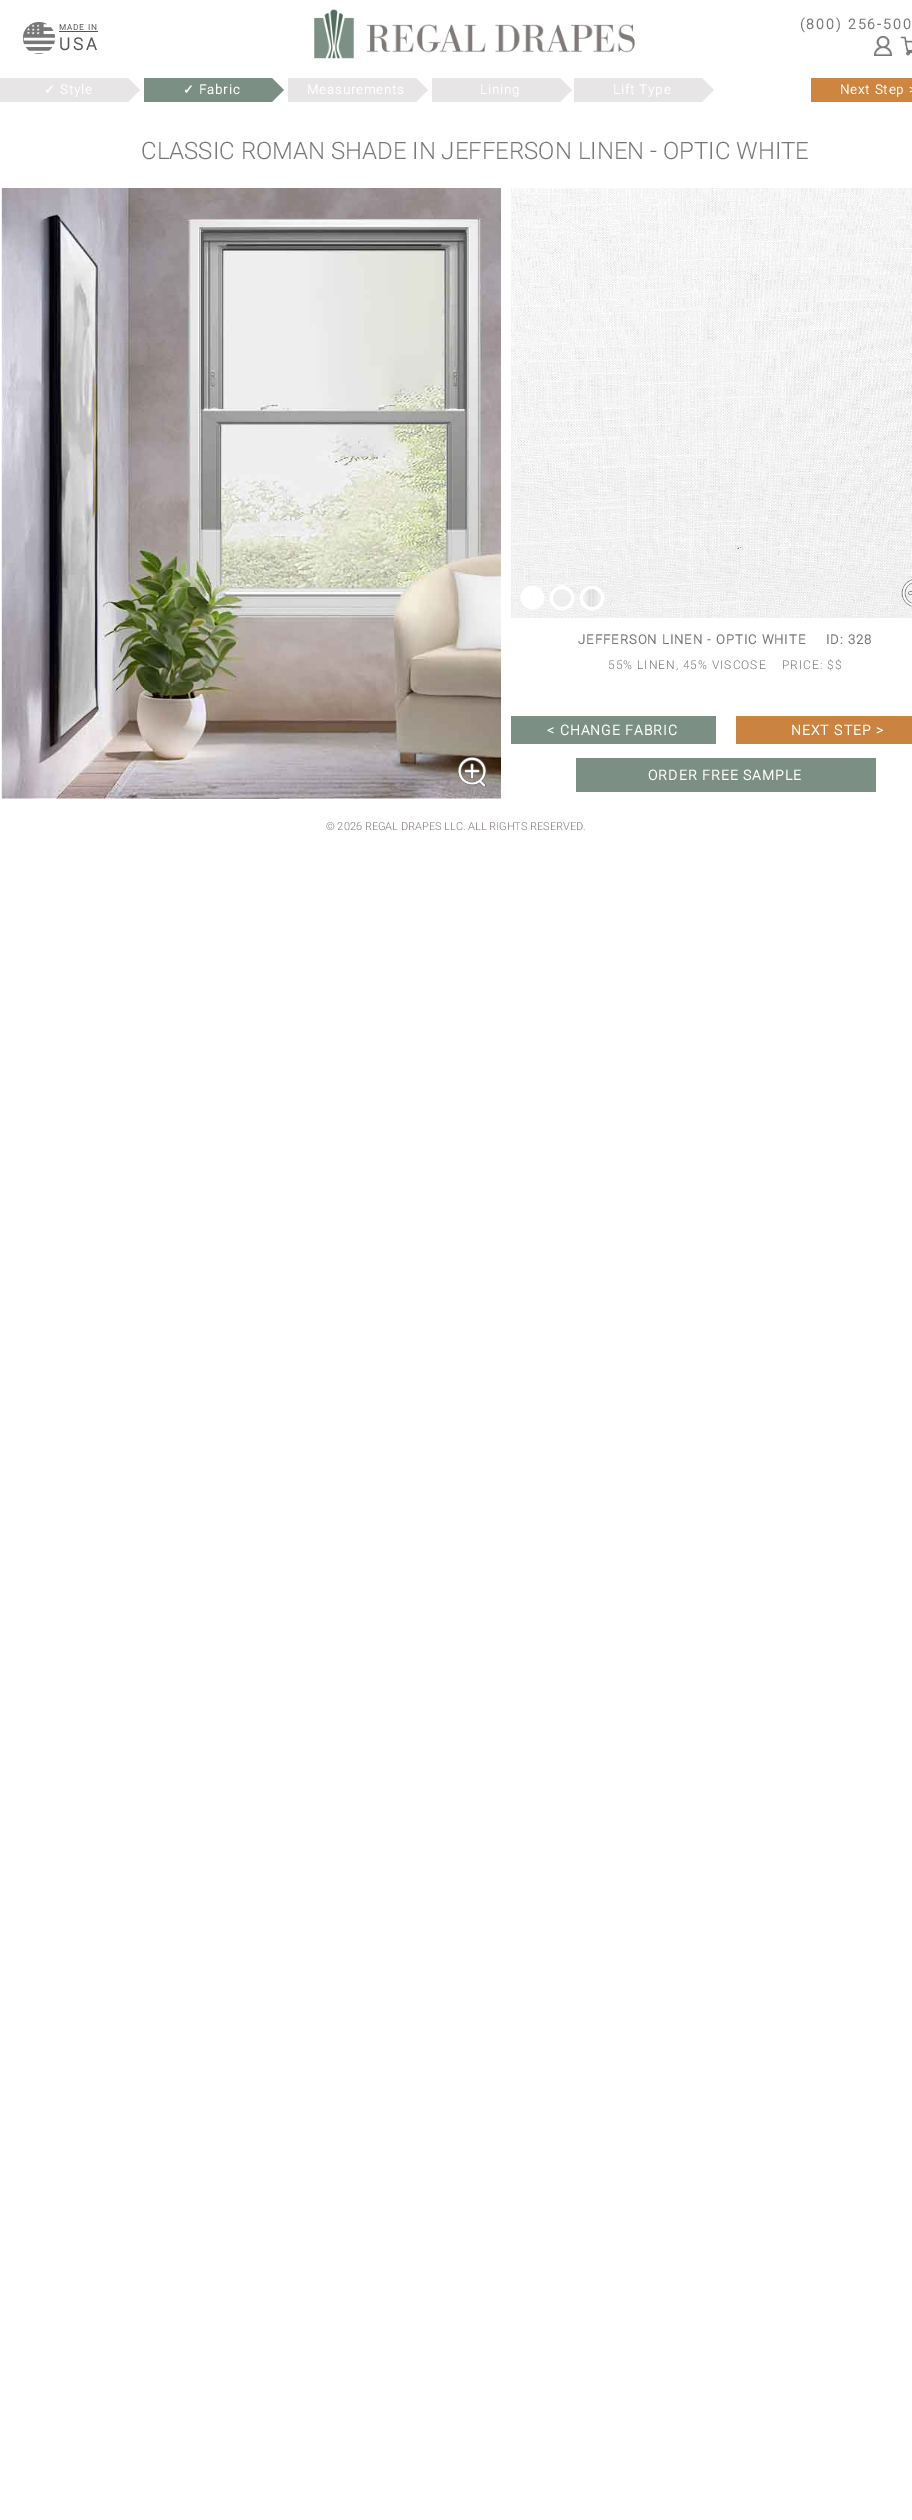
%!PS
<< /PageSize [912 2520] /PageUsesTransparency true >> setpagedevice
/rgb { 3 { 255 div 3 1 roll } repeat setrgbcolor } def
/font { [ exch dup neg 0 0 3 -1 roll 0 0 ] selectfont } def
/alpha { dup .setfillconstantalpha .setstrokeconstantalpha } def
/circle { newpath 0 360 arc closepath } def
/roundrect { 5 dict begin { /r /h /w /y /x } { exch def } forall
  x r add y moveto x w add y 2 copy h add r arct x w add y h add x 1 index r arct
  x y h add x y r arct x y 2 copy exch w add exch r arct closepath end } def
/shadow { 12 dict begin { /a /b /q /h /w /y /x } { exch def } forall gsave /was 0 def
  9 -2 -9 { dup b mul 4 div /e exch def 1 sub .425 mul 2.718 exch exp 1 add a .99 .min exch div /now exch def
    1 1 now sub 1 was sub div sub alpha /was now def
    w h .min e 2 mul add 0 gt { x e sub y e sub w e 2 mul add h e 2 mul add
      q e add b .6 mul add w h .min 2 div e add .min 0 .max roundrect fill } if } for grestore end } def
/picture { 5 dict begin { /h /w /y /x /name } { exch def } forall
  gsave x y translate w h scale
  w h 8 [w 0 0 h 0 0] name (r) file false 3 colorimage grestore end } def
0 .pushpdf14devicefilter
0 2520 translate 1 -1 scale
4 setmiterlimit
255 255 255 rgb
0 0 912 2520 rectfill
(img/1.rgb) 23 22 32 32 picture
85 83 81 rgb
59 31 39 1 rectfill
(img/2.rgb) 314 9 321 50 picture
(img/3.rgb) 874 36 18 20 picture
(img/4.rgb) 900 36 12 20 picture
231 229 229 rgb
0 78 128 24 rectfill
128 102 moveto 128 78 lineto 140 90 lineto closepath fill
123 143 133 rgb
144 78 128 24 rectfill
272 102 moveto 272 78 lineto 284 90 lineto closepath fill
231 229 229 rgb
288 78 128 24 rectfill
416 102 moveto 416 78 lineto 428 90 lineto closepath fill
432 78 128 24 rectfill
560 102 moveto 560 78 lineto 572 90 lineto closepath fill
574 78 128 24 rectfill
702 102 moveto 702 78 lineto 714 90 lineto closepath fill
206 133 64 rgb
811 78 101 24 rectfill
(img/5.rgb) 1 188 500 611 picture
(img/6.rgb) 457 756 30 32 picture
(img/7.rgb) 511 188 401 430 picture
255 255 255 rgb
521 586 23 23 11.5 0.5 1 shadow
11 setlinewidth
532.5 597.5 6 circle stroke
243 243 243 rgb
532 597 1 1 rectfill
255 255 255 rgb
550 586 24 24 12 0.5 1 shadow
562 598 10.5 circle gsave fill grestore
3 setlinewidth
stroke
(img/8.rgb) 553 589 18 18 picture
580 586 24 24 12 0.5 1 shadow
592 598 10.5 circle gsave fill grestore
stroke
(img/9.rgb) 583 589 18 18 picture
(img/10.rgb) 901 579 11 28 picture
[
  [511 716 205 28 123 143 133]
  [736 716 176 28 203 131 64]
  [576 758 300 34 123 143 133]
] { aload pop rgb rectfill } forall
/Roboto-Bold 8 font
85 83 81 rgb
59 30 moveto 1 0 (MADE IN) ashow
/Roboto-Bold 17 font
59 50 moveto 3 0 (USA) ashow
/Roboto-Bold 14 font
119 119 119 rgb
800 29 moveto 2 0 (\(800\) 256-500) ashow
/DejaVuSans-Bold 13 font
255 255 255 rgb
44 94 moveto 1 0 (✓) ashow
/Roboto-Bold 13 font
60 94 moveto 1 0 (Style) ashow
/DejaVuSans-Bold 13 font
183 94 moveto 1 0 (✓) ashow
/Roboto-Bold 13 font
199 94 moveto 1 0 (Fabric) ashow
307 94 moveto 1 0 (Measurements) ashow
480 94 moveto 1 0 (Lining) ashow
613 94 moveto 1 0 (Lift Type) ashow
840 94 moveto 1 0 (Next Step >) ashow
/Roboto-Light 24 font
119 119 119 rgb
141 159 moveto (CLASSIC ROMAN SHADE IN JEFFERSON LINEN - OPTIC WHITE) show
/Roboto-Bold 13 font
578 644 moveto 1 0 (JEFFERSON LINEN - OPTIC WHITE) ashow
826 644 moveto 1 0 (ID: 328) ashow
/Roboto-Light 12 font
608 669 moveto 1 0 (55% LINEN, 45% VISCOSE) ashow
782 669 moveto 1 0 (PRICE: $$) ashow
/Roboto-Bold 14 font
255 255 255 rgb
547 735 moveto 1 0 (< CHANGE FABRIC) ashow
791 735 moveto 1 0 (NEXT STEP >) ashow
648 780 moveto 1 0 (ORDER FREE SAMPLE) ashow
/Roboto-Light 11 font
128 122 120 rgb
326 830 moveto (© 2026 REGAL DRAPES LLC. ALL RIGHTS RESERVED.) show
.poppdf14devicefilter showpage
